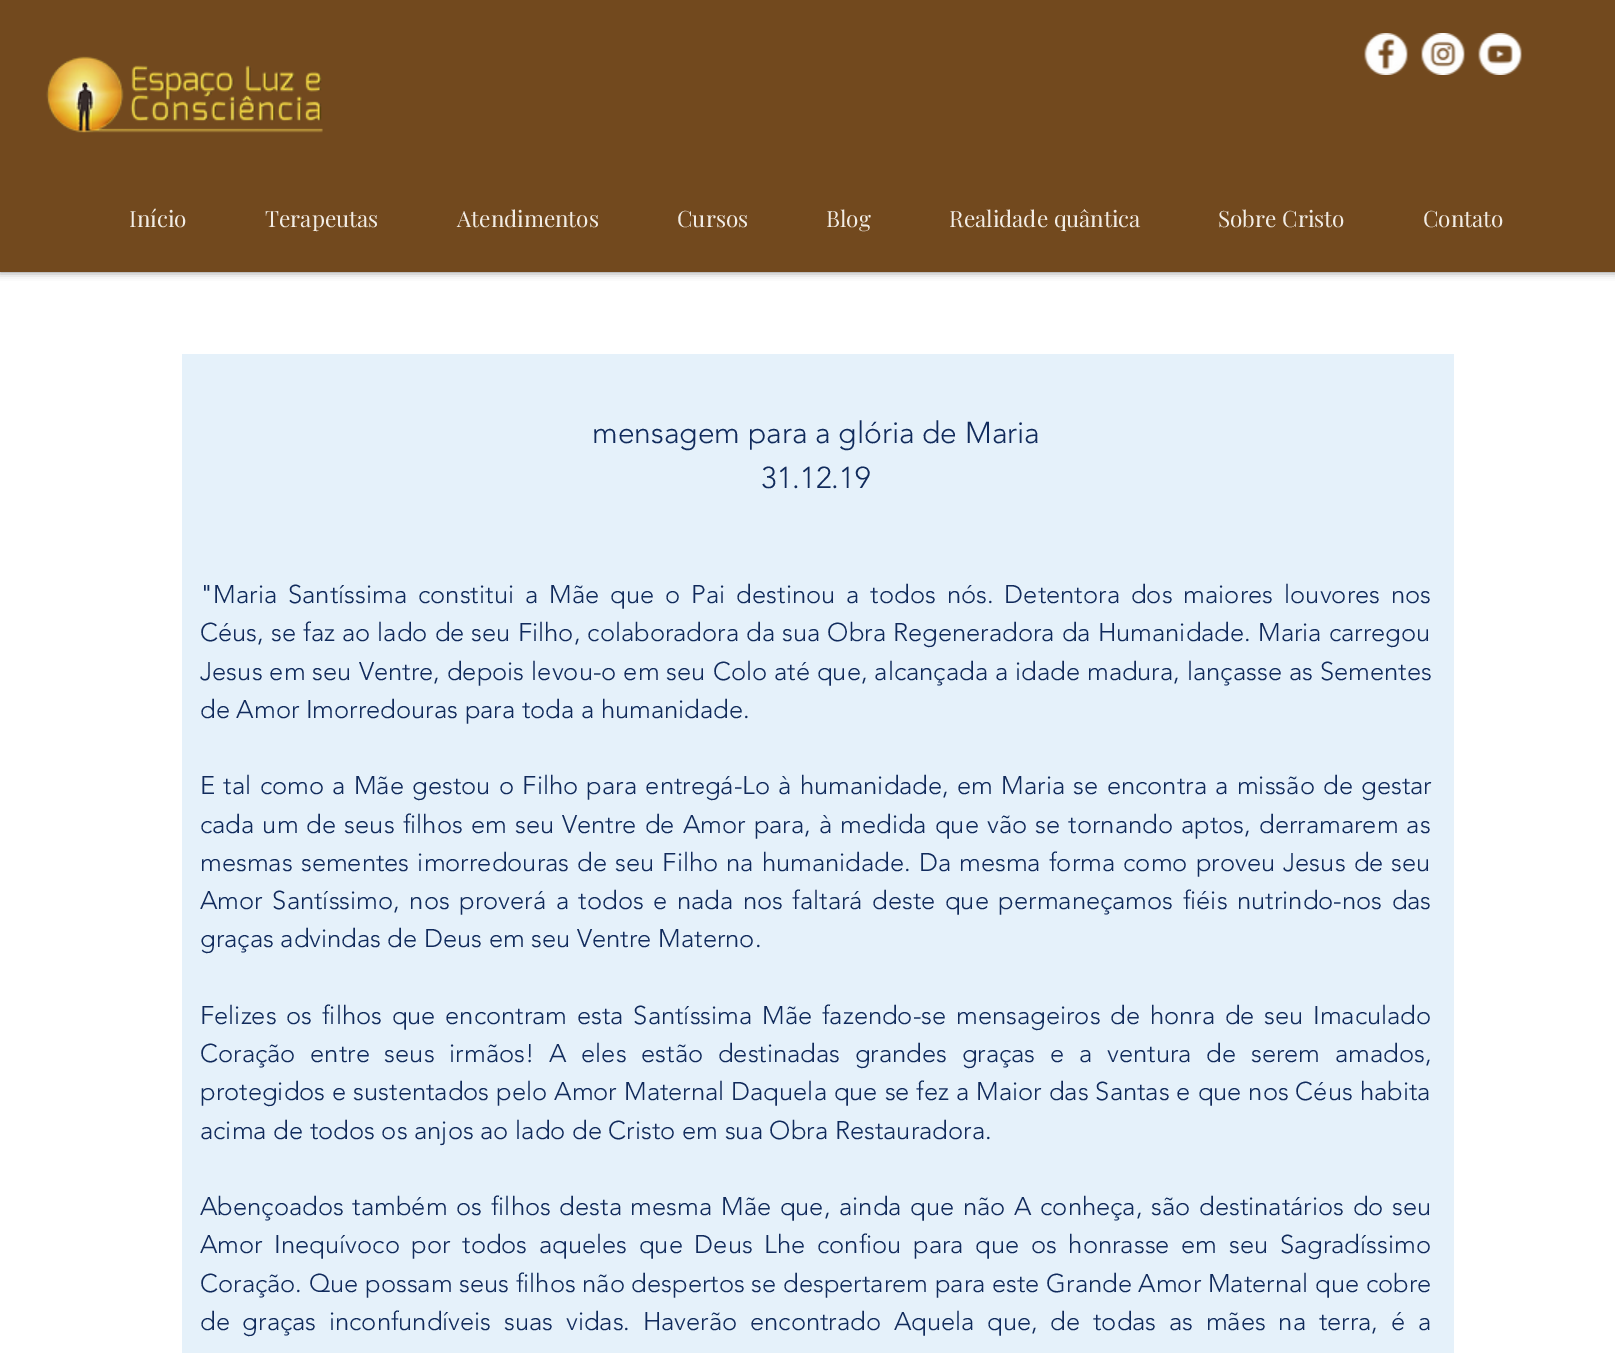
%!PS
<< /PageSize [1615 1353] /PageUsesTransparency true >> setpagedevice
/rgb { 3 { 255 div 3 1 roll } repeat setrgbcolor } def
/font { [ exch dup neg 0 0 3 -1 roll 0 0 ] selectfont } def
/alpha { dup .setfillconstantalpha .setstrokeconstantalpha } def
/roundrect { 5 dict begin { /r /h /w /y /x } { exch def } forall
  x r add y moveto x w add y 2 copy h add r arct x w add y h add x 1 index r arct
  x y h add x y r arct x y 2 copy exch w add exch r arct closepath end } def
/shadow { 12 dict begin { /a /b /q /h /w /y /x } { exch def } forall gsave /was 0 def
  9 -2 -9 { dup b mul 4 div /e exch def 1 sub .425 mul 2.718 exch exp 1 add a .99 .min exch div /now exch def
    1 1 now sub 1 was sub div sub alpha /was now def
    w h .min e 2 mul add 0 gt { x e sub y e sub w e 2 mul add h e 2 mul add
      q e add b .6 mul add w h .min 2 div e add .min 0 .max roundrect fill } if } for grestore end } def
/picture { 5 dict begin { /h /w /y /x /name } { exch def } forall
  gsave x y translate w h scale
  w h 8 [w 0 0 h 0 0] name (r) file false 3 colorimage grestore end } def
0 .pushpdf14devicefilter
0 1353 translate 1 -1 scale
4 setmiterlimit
255 255 255 rgb
0 0 1615 1353 rectfill
0 0 0 rgb
0 0 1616 272 0 4 0.5 shadow
114 73 30 rgb
0 0 1615 272 rectfill
(img/1.rgb) 46 56 277 77 picture
(img/2.rgb) 1364 33 44 42 picture
(img/3.rgb) 1421 33 44 42 picture
(img/4.rgb) 1478 33 44 42 picture
229 241 250 rgb
182 354 1272 999 rectfill
/PlayfairDisplay-Regular 22.5 font
242 236 228 rgb
[
  [(Início) 129 227]
  [(Terapeutas) 265 227]
  [(Atendimentos) 457 227]
  [(Cursos) 677 227]
  [(Blog) 826 227]
  [(Realidade quântica) 949 227]
  [(Sobre Cristo) 1218 227]
  [(Contato) 1423 227]
] { aload pop moveto show } forall
/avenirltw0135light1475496-Light 30 font
17 43 92 rgb
592 443 moveto (mensagem para a glória de Maria) show
761 488 moveto (31.12.19) show
/avenirltw0135light1475496-Light 25.5 font
200 603 moveto 4.4 0 32 ("Maria Santíssima constitui a Mãe que o Pai destinou a todos nós. Detentora dos maiores louvores nos) widthshow
200 641 moveto 0.5 0 32 (Céus, se faz ao lado de seu Filho, colaboradora da sua Obra Regeneradora da Humanidade. Maria carregou) widthshow
200 680 moveto 0.4 0 32 (Jesus em seu Ventre, depois levou-o em seu Colo até que, alcançada a idade madura, lançasse as Sementes) widthshow
200 718 moveto (de Amor Imorredouras para toda a humanidade.) show
200 794 moveto 1.7 0 32 (E tal como a Mãe gestou o Filho para entregá-Lo à humanidade, em Maria se encontra a missão de gestar) widthshow
200 833 moveto 1.5 0 32 (cada um de seus filhos em seu Ventre de Amor para, à medida que vão se tornando aptos, derramarem as) widthshow
200 871 moveto 1.5 0 32 (mesmas sementes imorredouras de seu Filho na humanidade. Da mesma forma como proveu Jesus de seu) widthshow
200 909 moveto 2.9 0 32 (Amor Santíssimo, nos proverá a todos e nada nos faltará deste que permaneçamos fiéis nutrindo-nos das) widthshow
200 947 moveto (graças advindas de Deus em seu Ventre Materno.) show
200 1024 moveto 3.1 0 32 (Felizes os filhos que encontram esta Santíssima Mãe fazendo-se mensageiros de honra de seu Imaculado) widthshow
200 1062 moveto 8.1 0 32 (Coração entre seus irmãos! A eles estão destinadas grandes graças e a ventura de serem amados,) widthshow
200 1100 moveto 0.3 0 32 (protegidos e sustentados pelo Amor Maternal Daquela que se fez a Maior das Santas e que nos Céus habita) widthshow
200 1139 moveto (acima de todos os anjos ao lado de Cristo em sua Obra Restauradora.) show
200 1215 moveto 2.1 0 32 (Abençoados também os filhos desta mesma Mãe que, ainda que não A conheça, são destinatários do seu) widthshow
200 1253 moveto 5 0 32 (Amor Inequívoco por todos aqueles que Deus Lhe confiou para que os honrasse em seu Sagradíssimo) widthshow
200 1292 moveto (Coração. Que possam seus filhos não despertos se despertarem para este Grande Amor Maternal que cobre) show
200 1330 moveto 6.1 0 32 (de graças inconfundíveis suas vidas. Haverão encontrado Aquela que, de todas as mães na terra, é a) widthshow
.poppdf14devicefilter showpage
